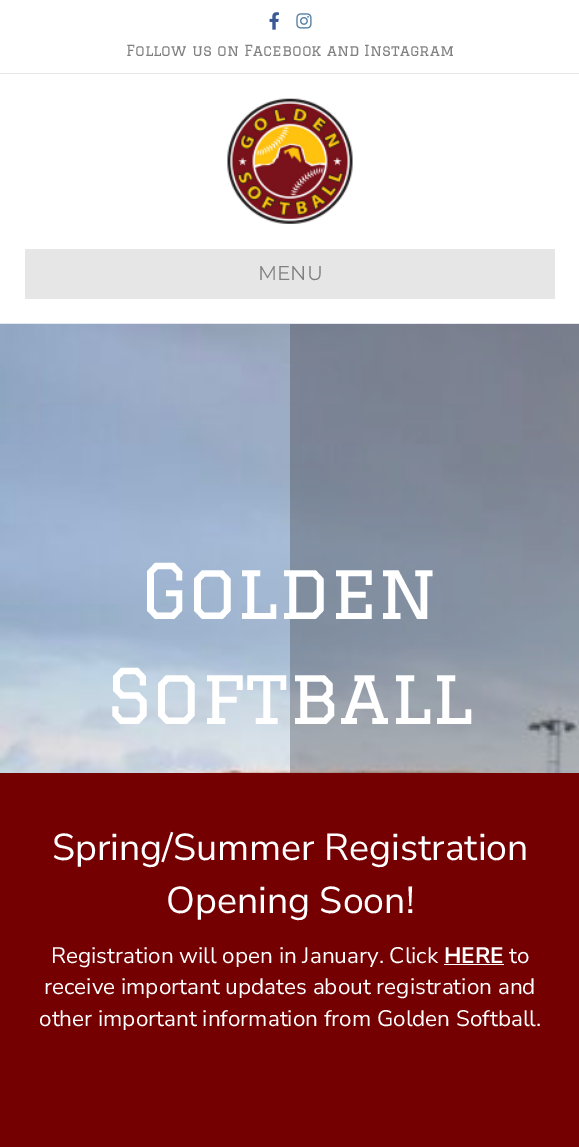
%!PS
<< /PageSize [579 1147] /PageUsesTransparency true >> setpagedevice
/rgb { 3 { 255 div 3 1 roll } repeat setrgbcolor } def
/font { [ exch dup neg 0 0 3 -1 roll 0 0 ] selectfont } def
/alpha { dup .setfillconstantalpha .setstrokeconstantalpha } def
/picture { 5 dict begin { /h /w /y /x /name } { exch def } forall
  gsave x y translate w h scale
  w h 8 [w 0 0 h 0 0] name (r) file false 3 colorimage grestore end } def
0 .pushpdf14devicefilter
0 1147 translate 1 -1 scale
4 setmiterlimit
255 255 255 rgb
0 0 579 1147 rectfill
230 230 230 rgb
0 73 579 1 rectfill
(img/1.rgb) 269 12 10 18 picture
(img/2.rgb) 296 13 16 16 picture
(img/3.rgb) 227 98 126 126 picture
25 249 530 50 rectfill
(img/4.rgb) 0 323 579 450 picture
0.3 alpha
[
  [290 324 289 449 45 40 45]
] { aload pop rgb rectfill } forall
1 alpha
[
  [0 773 579 374 117 0 1]
  [444 964 60 1 255 255 255]
] { aload pop rgb rectfill } forall
/Graduate-Regular 15 font
128 128 128 rgb
126 56 moveto (Follow us on Facebook and Instagram) show
/Montserrat-Thin 20 font
258 280 moveto (MENU) show
/Graduate-Regular 75 font
255 255 255 rgb
141 619 moveto (Golden) show
107 724 moveto (Softball) show
/NunitoSans-Regular 37.5 font
52 860 moveto (Spring/Summer Registration) show
166 913 moveto (Opening Soon!) show
/NunitoSans-Regular 22.5 font
51 963 moveto (Registration will open in January. Click) show
/NunitoSans-ExtraLight 22.5 font
444 963 moveto (HERE) show
/NunitoSans-Regular 22.5 font
[
  [(to) 509 963]
  [(receive important updates about registration and) 44 994]
  [(other important information from Golden Softball.) 39 1026]
] { aload pop moveto show } forall
.poppdf14devicefilter showpage
